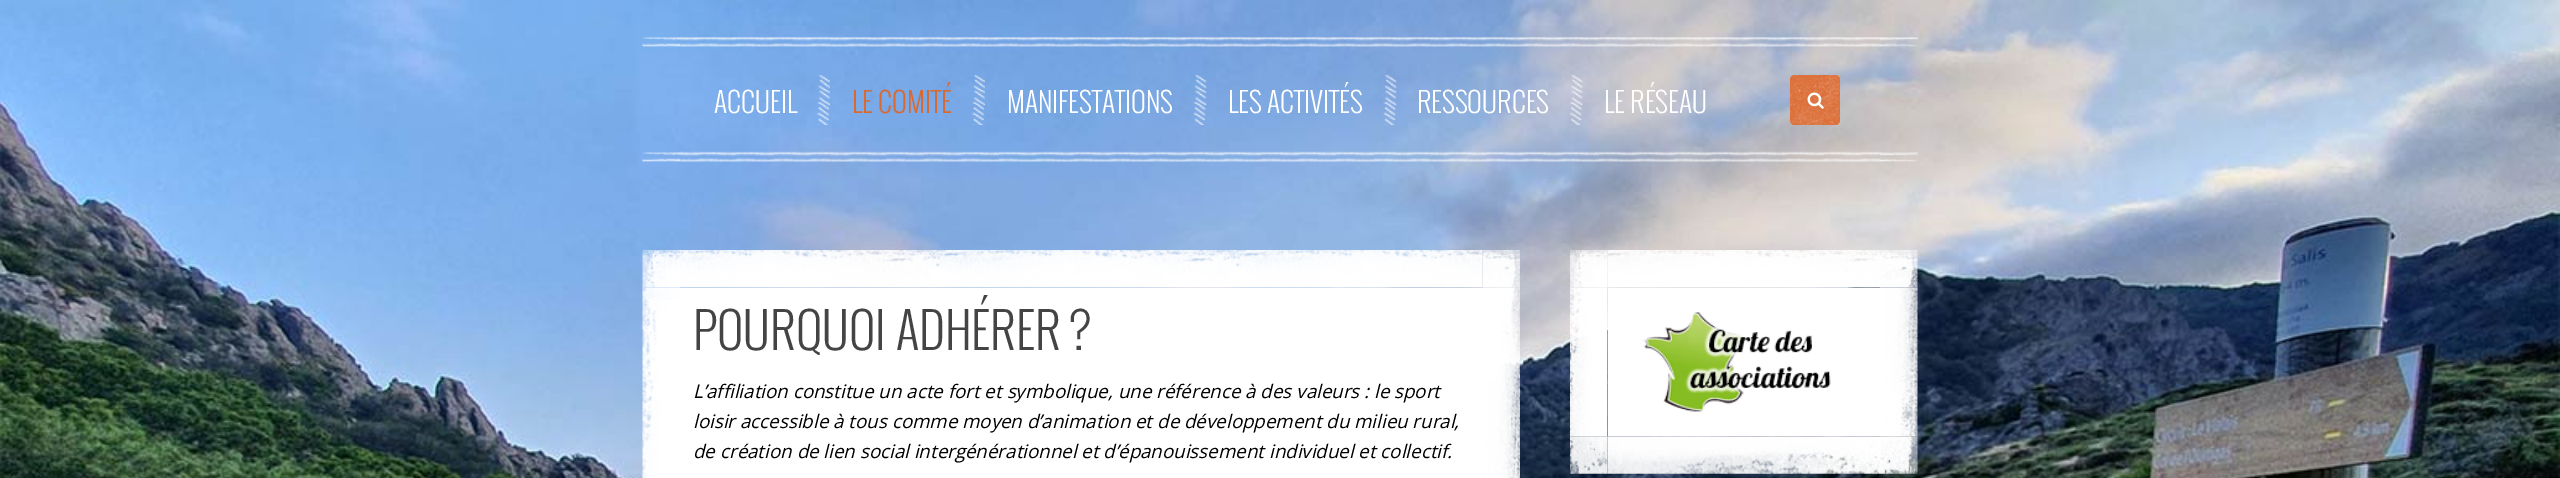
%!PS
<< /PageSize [2560 478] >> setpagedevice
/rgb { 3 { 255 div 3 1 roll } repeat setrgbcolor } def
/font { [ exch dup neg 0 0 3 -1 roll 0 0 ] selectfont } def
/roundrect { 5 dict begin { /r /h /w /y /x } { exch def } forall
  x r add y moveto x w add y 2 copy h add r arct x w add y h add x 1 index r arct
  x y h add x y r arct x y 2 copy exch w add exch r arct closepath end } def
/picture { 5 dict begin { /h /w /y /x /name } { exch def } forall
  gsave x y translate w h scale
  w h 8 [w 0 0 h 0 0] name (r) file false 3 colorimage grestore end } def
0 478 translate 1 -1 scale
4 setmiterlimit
255 255 255 rgb
0 0 2560 478 rectfill
(img/1.rgb) 0 0 2560 478 picture
(img/2.rgb) 642 37 1276 125 picture
(img/3.rgb) 817 75 13 50 picture
(img/4.rgb) 972 75 13 50 picture
(img/5.rgb) 1193 75 14 50 picture
(img/6.rgb) 1383 75 14 50 picture
(img/7.rgb) 1570 75 13 50 picture
218 105 49 rgb
1790 75 50 50 4 roundrect fill
(img/8.rgb) 1790 75 50 50 picture
(img/9.rgb) 1807 92 17 17 picture
255 255 255 rgb
680 288 803 190 rectfill
(img/10.rgb) 642 250 878 228 picture
1608 288 272 148 rectfill
(img/11.rgb) 1570 250 348 224 picture
(img/12.rgb) 1642 312 189 100 picture
/Oswald-Light 27.5 font
714 113 moveto (ACCUEIL) show
218 105 49 rgb
852 113 moveto (LE COMITÉ) show
255 255 255 rgb
[
  [(MANIFESTATIONS) 1007 113]
  [(LES ACTIVITÉS) 1228 113]
  [(RESSOURCES) 1417 113]
  [(LE RÉSEAU) 1604 113]
] { aload pop moveto show } forall
/Oswald-Light 48.75 font
68 68 68 rgb
693 350 moveto (POURQUOI ADHÉRER ?) show
/OpenSans-Italic 18.75 font
0 0 0 rgb
[
  [(L’affiliation constitue un acte fort et symbolique, une référence à des valeurs : le sport) 693 398]
  [(loisir accessible à tous comme moyen d’animation et de développement du milieu rural,) 693 428]
  [(de création de lien social intergénérationnel et d’épanouissement individuel et collectif.) 693 458]
] { aload pop moveto show } forall
showpage
